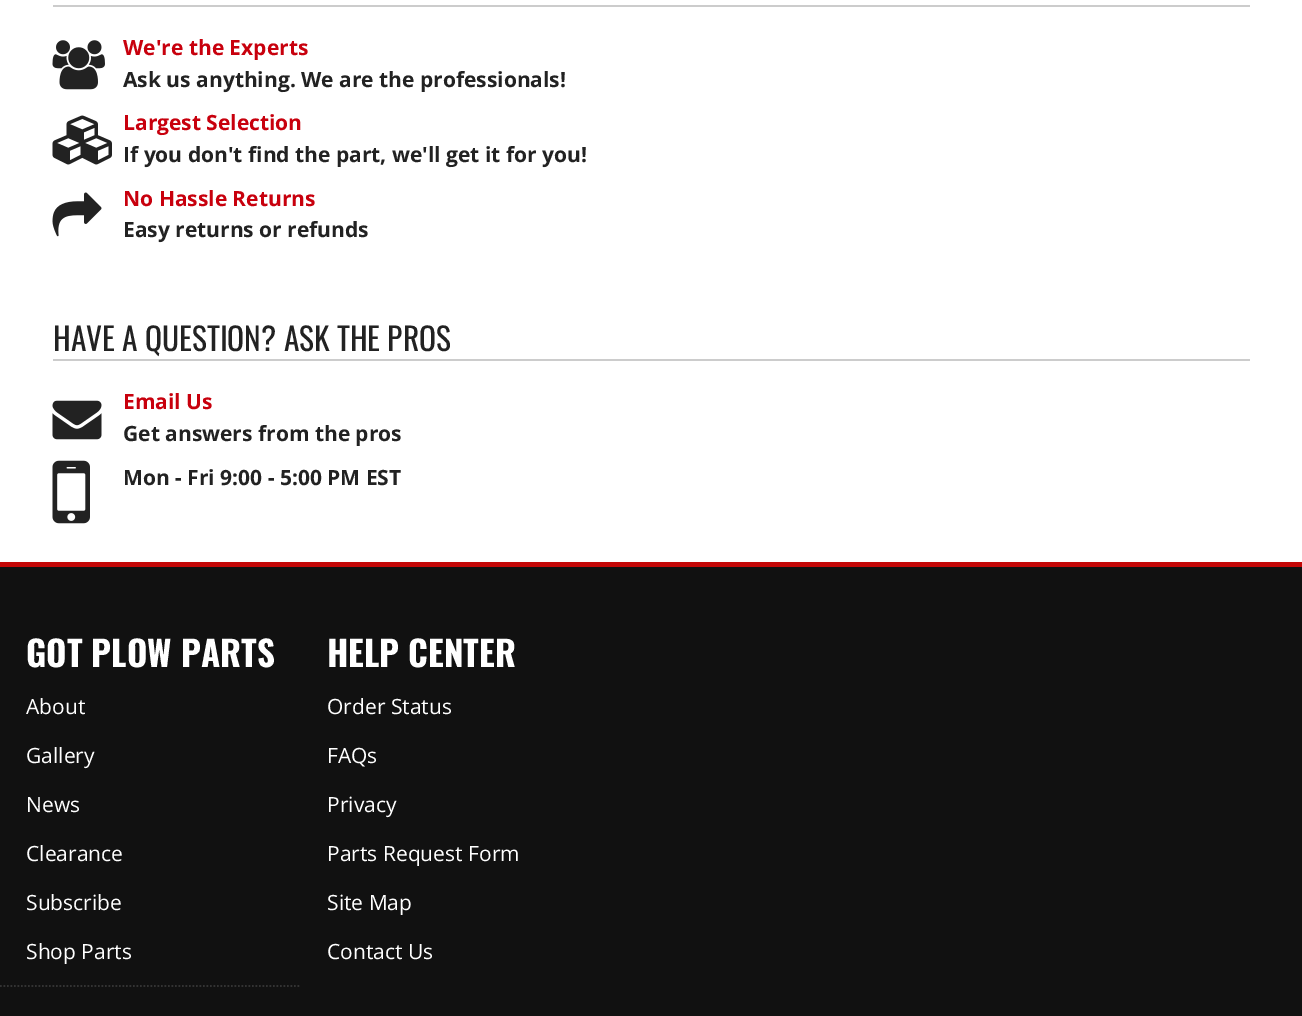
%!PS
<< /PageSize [1302 1016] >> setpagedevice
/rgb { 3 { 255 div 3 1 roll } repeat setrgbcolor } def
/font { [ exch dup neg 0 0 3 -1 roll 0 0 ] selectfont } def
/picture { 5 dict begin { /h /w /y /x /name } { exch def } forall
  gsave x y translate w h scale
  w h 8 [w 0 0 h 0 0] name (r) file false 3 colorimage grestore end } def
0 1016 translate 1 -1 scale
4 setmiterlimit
255 255 255 rgb
0 0 1302 1016 rectfill
204 204 204 rgb
53 5 1197 2 rectfill
(img/1.rgb) 52 40 53 50 picture
(img/2.rgb) 52 115 60 50 picture
(img/3.rgb) 52 192 50 45 picture
53 359 1197 2 rectfill
(img/4.rgb) 52 400 50 40 picture
(img/5.rgb) 52 460 38 64 picture
17 17 17 rgb
0 567 1302 449 rectfill
195 7 7 rgb
0 562 1302 5 rectfill
51 51 51 rgb
1.8 setlinewidth
[1.75 1.75] 0 setdash
0 986 moveto 301 986 lineto stroke
/OpenSans-Bold 21 font
200 0 13 rgb
123 55 moveto (We're the Experts) show
34 34 34 rgb
123 87 moveto (Ask us anything. We are the professionals!) show
200 0 13 rgb
123 130 moveto (Largest Selection) show
34 34 34 rgb
123 162 moveto (If you don't find the part, we'll get it for you!) show
200 0 13 rgb
123 206 moveto (No Hassle Returns) show
34 34 34 rgb
123 237 moveto (Easy returns or refunds) show
/Oswald-Regular 31.5 font
53 351 moveto (HAVE A QUESTION? ASK THE PROS) show
/OpenSans-Bold 21 font
200 0 13 rgb
123 409 moveto (Email Us) show
34 34 34 rgb
123 441 moveto (Get answers from the pros) show
123 485 moveto (Mon - Fri 9:00 - 5:00 PM EST) show
/Oswald-Bold 35 font
255 255 255 rgb
26 667 moveto (GOT PLOW PARTS) show
/OpenSans-Regular 21 font
[
  [(About) 26 714]
  [(Gallery) 26 763]
  [(News) 26 812]
  [(Clearance) 26 861]
  [(Subscribe) 26 910]
  [(Shop Parts) 26 959]
] { aload pop moveto show } forall
/Oswald-Bold 35 font
327 667 moveto (HELP CENTER) show
/OpenSans-Regular 21 font
[
  [(Order Status) 327 714]
  [(FAQs) 327 763]
  [(Privacy) 327 812]
  [(Parts Request Form) 327 861]
  [(Site Map) 327 910]
  [(Contact Us) 327 959]
] { aload pop moveto show } forall
showpage
